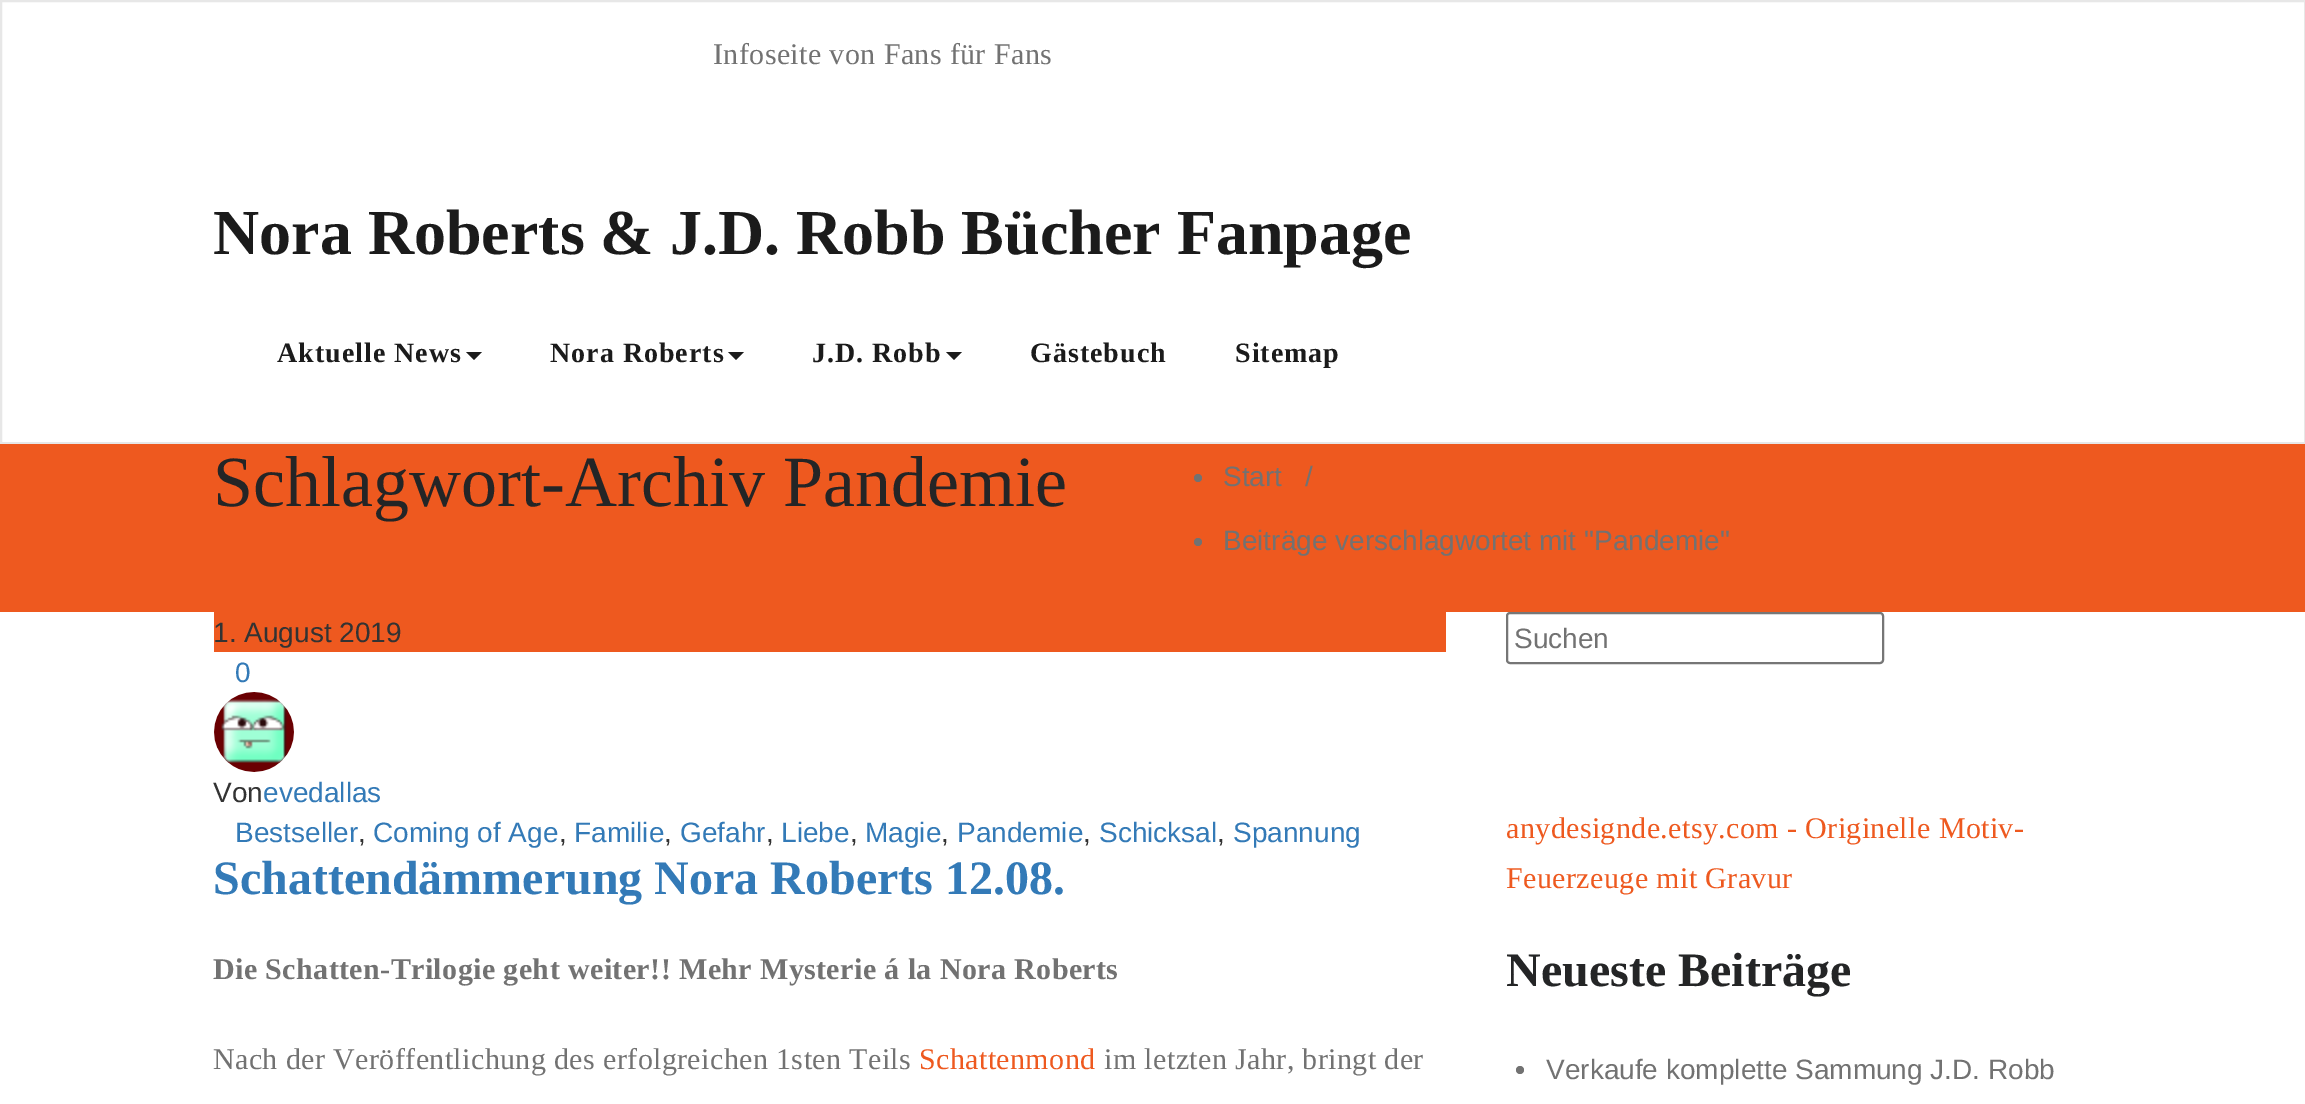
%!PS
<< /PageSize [2305 1104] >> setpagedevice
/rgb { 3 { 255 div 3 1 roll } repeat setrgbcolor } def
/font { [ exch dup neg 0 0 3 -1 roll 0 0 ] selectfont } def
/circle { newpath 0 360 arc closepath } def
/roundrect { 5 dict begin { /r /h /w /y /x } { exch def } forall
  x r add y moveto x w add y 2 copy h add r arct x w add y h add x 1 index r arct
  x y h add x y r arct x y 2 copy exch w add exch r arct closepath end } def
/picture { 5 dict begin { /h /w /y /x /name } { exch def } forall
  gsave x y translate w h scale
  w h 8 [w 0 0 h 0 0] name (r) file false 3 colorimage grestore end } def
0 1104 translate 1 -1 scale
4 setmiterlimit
255 255 255 rgb
0 0 2305 1104 rectfill
231 231 231 rgb
2 setlinewidth
1 1 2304 442 rectstroke
27 27 27 rgb
466 352 moveto 482 352 lineto 474 360 lineto closepath fill
728 352 moveto 744 352 lineto 736 360 lineto closepath fill
946 352 moveto 962 352 lineto 954 360 lineto closepath fill
238 89 31 rgb
0 444 2305 168 rectfill
114 114 114 rgb
1198 478 4 circle fill
1198 542 4 circle fill
238 89 31 rgb
214 612 1232 40 rectfill
(img/1.rgb) 214 692 80 80 picture
118 118 118 rgb
1507 613 376 50 3 roundrect stroke
114 114 114 rgb
1520 1070 4 circle fill
/LiberationSerif-Regular 30 font
713 64 moveto 0.4 0 (Infoseite von Fans für Fans) ashow
/LiberationSerif-Bold 64 font
27 27 27 rgb
213 254 moveto (Nora Roberts & J.D. Robb Bücher Fanpage) show
/LiberationSerif-Bold 28 font
277 362 moveto 1 0 (Aktuelle News) ashow
550 362 moveto 1 0 (Nora Roberts) ashow
812 362 moveto 1 0 (J.D. Robb) ashow
1030 362 moveto 1 0 (Gästebuch) ashow
1235 362 moveto 1 0 (Sitemap) ashow
/LiberationSerif-Regular 72 font
36 37 38 rgb
213 506 moveto (Schlagwort-Archiv Pandemie) show
/LiberationSans-Regular 28 font
114 114 114 rgb
[
  [(Start) 1223 486]
  [(/) 1305 486]
  [(Beiträge verschlagwortet mit "Pandemie") 1223 550]
] { aload pop moveto show } forall
51 51 51 rgb
213 642 moveto (1. August 2019) show
51 122 183 rgb
235 682 moveto (0) show
51 51 51 rgb
213 802 moveto (Von) show
51 122 183 rgb
263 802 moveto (evedallas) show
235 842 moveto (Bestseller) show
51 51 51 rgb
358 842 moveto (,) show
51 122 183 rgb
373 842 moveto (Coming of Age) show
51 51 51 rgb
559 842 moveto (,) show
51 122 183 rgb
574 842 moveto (Familie) show
51 51 51 rgb
664 842 moveto (,) show
51 122 183 rgb
680 842 moveto (Gefahr) show
51 51 51 rgb
766 842 moveto (,) show
51 122 183 rgb
781 842 moveto (Liebe) show
51 51 51 rgb
850 842 moveto (,) show
51 122 183 rgb
865 842 moveto (Magie) show
51 51 51 rgb
941 842 moveto (,) show
51 122 183 rgb
957 842 moveto (Pandemie) show
51 51 51 rgb
1083 842 moveto (,) show
51 122 183 rgb
1099 842 moveto (Schicksal) show
51 51 51 rgb
1217 842 moveto (,) show
51 122 183 rgb
1233 842 moveto (Spannung) show
/LiberationSerif-Bold 48 font
213 894 moveto (Schattendämmerung Nora Roberts 12.08.) show
/LiberationSerif-Bold 30 font
114 114 114 rgb
213 979 moveto 0.4 0 (Die Schatten-Trilogie geht weiter!! Mehr Mysterie á la Nora Roberts) ashow
/LiberationSerif-Regular 30 font
213 1069 moveto 0.4 0 (Nach der Veröffentlichung des erfolgreichen 1sten Teils) ashow
238 89 31 rgb
919 1069 moveto 0.4 0 (Schattenmond) ashow
114 114 114 rgb
1104 1069 moveto 0.4 0 (im letzten Jahr, bringt der) ashow
/LiberationSans-Regular 28 font
1514 648 moveto (Suchen) show
/LiberationSerif-Regular 30 font
238 89 31 rgb
1506 838 moveto 0.4 0 (anydesignde.etsy.com - Originelle Motiv-) ashow
1506 888 moveto 0.4 0 (Feuerzeuge mit Gravur) ashow
/LiberationSerif-Bold 48 font
36 37 38 rgb
1506 986 moveto (Neueste Beiträge) show
/LiberationSans-Regular 28 font
114 114 114 rgb
1546 1079 moveto (Verkaufe komplette Sammung J.D. Robb) show
showpage
